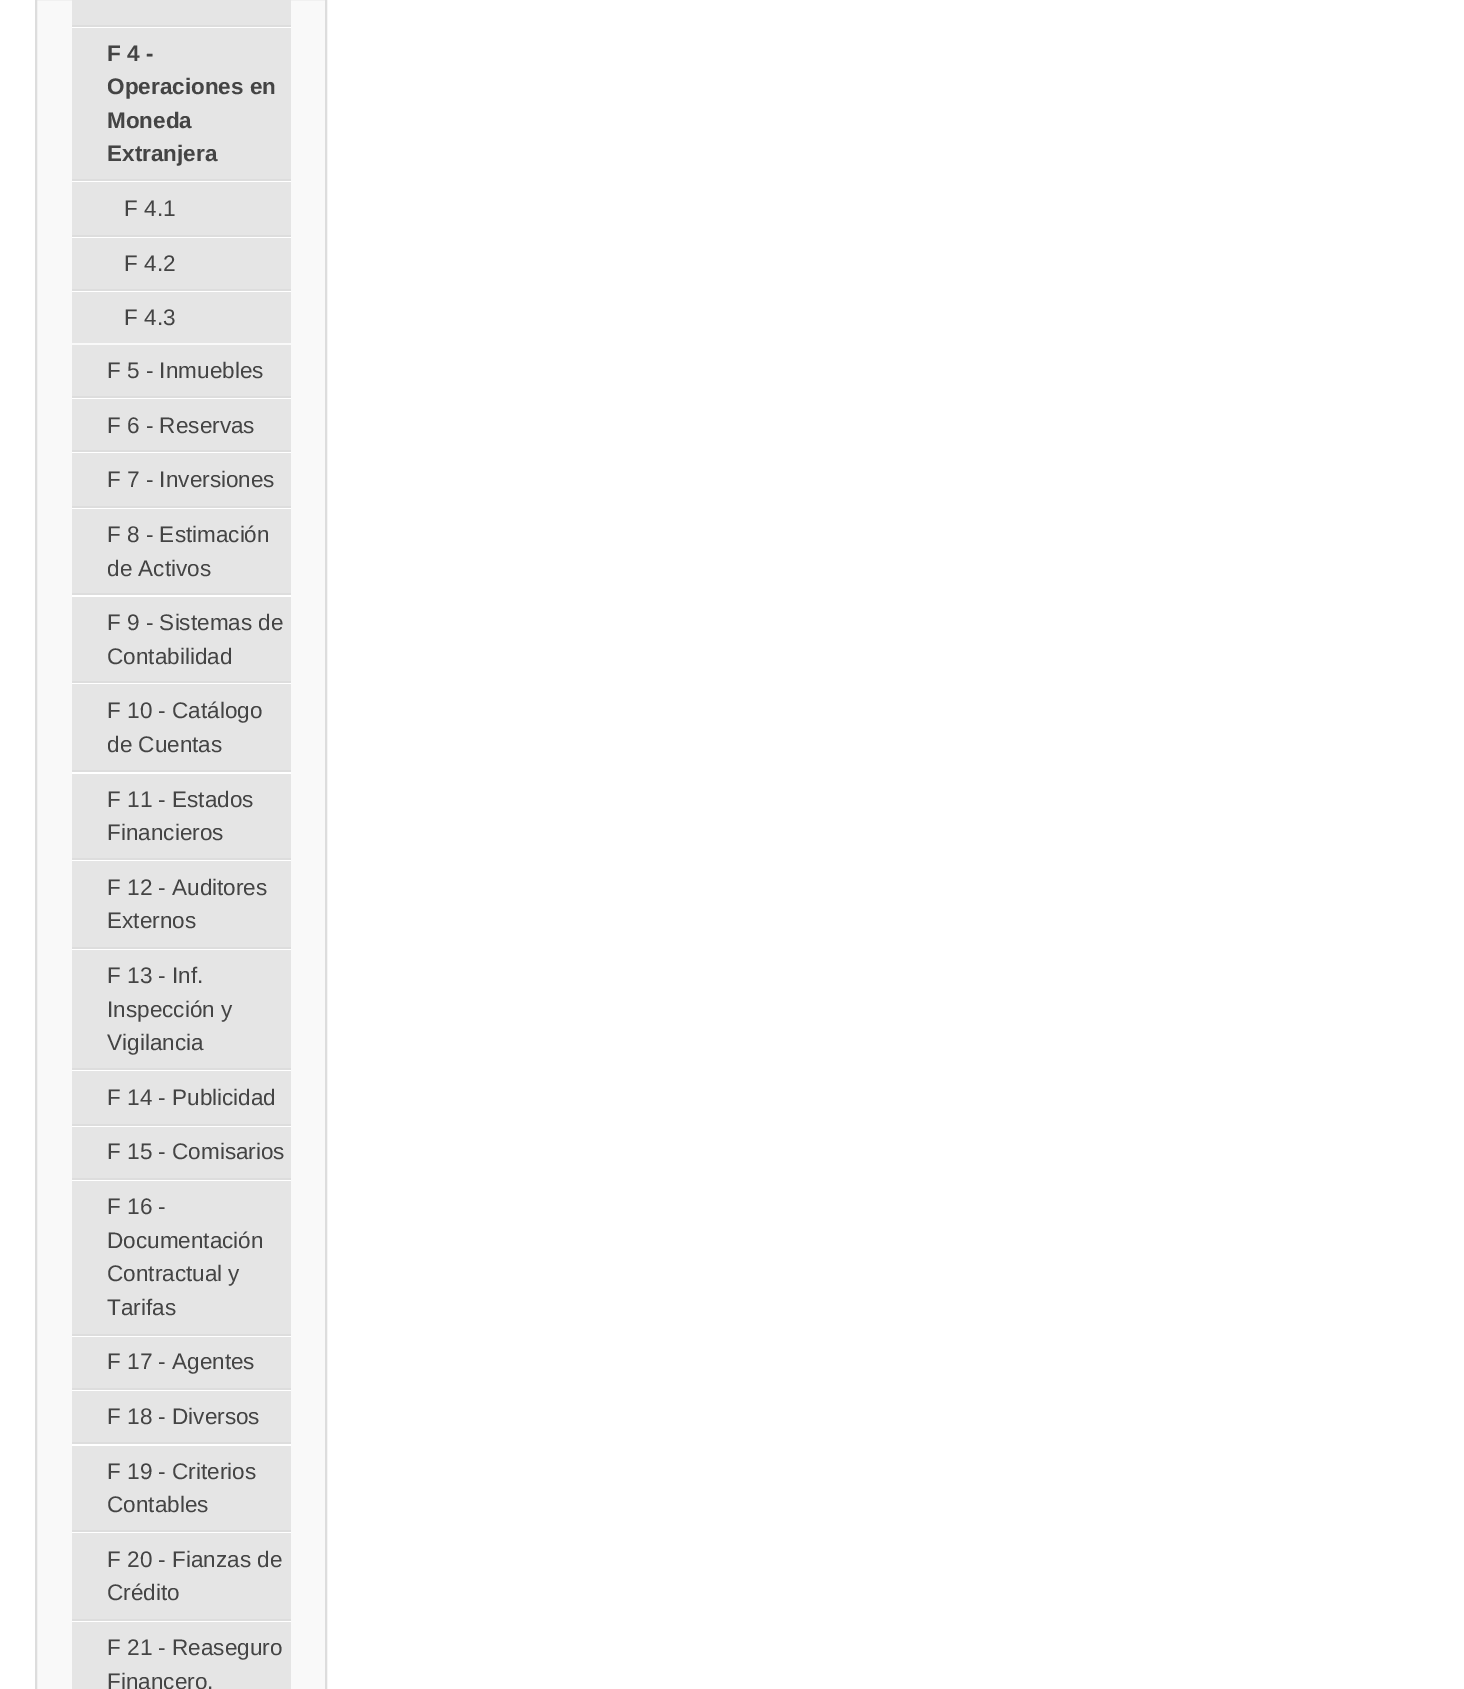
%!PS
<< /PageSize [1464 1689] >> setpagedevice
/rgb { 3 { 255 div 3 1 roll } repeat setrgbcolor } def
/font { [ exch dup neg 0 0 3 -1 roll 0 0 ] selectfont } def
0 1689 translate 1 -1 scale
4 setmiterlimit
255 255 255 rgb
0 0 1464 1689 rectfill
249 249 249 rgb
36 -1 moveto 326 -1 lineto 326 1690 lineto 36 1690 lineto closepath gsave fill grestore
221 221 221 rgb
2 setlinewidth
stroke
255 255 255 rgb
72 26 moveto 72 28 lineto 291 28 lineto 291 -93 lineto 290 -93 lineto 290 26 lineto closepath fill
229 229 229 rgb
72 0 219 25 rectfill
221 221 221 rgb
72 25 219 2 rectfill
255 255 255 rgb
72 180 moveto 72 182 lineto 291 182 lineto 291 30 lineto 290 30 lineto 290 180 lineto closepath fill
229 229 229 rgb
72 28 219 151 rectfill
221 221 221 rgb
72 179 219 2 rectfill
255 255 255 rgb
72 236 moveto 72 238 lineto 291 238 lineto 291 184 lineto 290 184 lineto 290 236 lineto closepath fill
229 229 229 rgb
72 182 219 53 rectfill
221 221 221 rgb
72 235 219 2 rectfill
255 255 255 rgb
72 290 moveto 72 292 lineto 291 292 lineto 291 240 lineto 290 240 lineto 290 290 lineto closepath fill
[
  [72 238 219 51 229 229 229]
  [72 289 219 2 221 221 221]
  [72 292 219 51 229 229 229]
] { aload pop rgb rectfill } forall
255 255 255 rgb
72 397 moveto 72 399 lineto 291 399 lineto 291 347 lineto 290 347 lineto 290 397 lineto closepath fill
229 229 229 rgb
72 345 219 51 rectfill
221 221 221 rgb
72 396 219 2 rectfill
255 255 255 rgb
72 452 moveto 72 453 lineto 291 453 lineto 291 401 lineto 290 401 lineto 290 452 lineto closepath fill
229 229 229 rgb
72 399 219 51 rectfill
221 221 221 rgb
72 450 219 2 rectfill
255 255 255 rgb
72 508 moveto 72 509 lineto 291 509 lineto 291 455 lineto 290 455 lineto 290 508 lineto closepath fill
229 229 229 rgb
72 453 219 53 rectfill
221 221 221 rgb
72 506 219 2 rectfill
255 255 255 rgb
72 595 moveto 72 597 lineto 291 597 lineto 291 511 lineto 290 511 lineto 290 595 lineto closepath fill
229 229 229 rgb
72 509 219 84 rectfill
221 221 221 rgb
72 593 219 2 rectfill
255 255 255 rgb
72 682 moveto 72 684 lineto 291 684 lineto 291 599 lineto 290 599 lineto 290 682 lineto closepath fill
229 229 229 rgb
72 597 219 84 rectfill
221 221 221 rgb
72 681 219 2 rectfill
255 255 255 rgb
72 772 moveto 72 774 lineto 291 774 lineto 291 686 lineto 290 686 lineto 290 772 lineto closepath fill
229 229 229 rgb
72 684 219 86 rectfill
221 221 221 rgb
72 770 219 2 rectfill
255 255 255 rgb
72 859 moveto 72 861 lineto 291 861 lineto 291 775 lineto 290 775 lineto 290 859 lineto closepath fill
229 229 229 rgb
72 774 219 84 rectfill
221 221 221 rgb
72 858 219 2 rectfill
255 255 255 rgb
72 948 moveto 72 950 lineto 291 950 lineto 291 863 lineto 290 863 lineto 290 948 lineto closepath fill
229 229 229 rgb
72 861 219 86 rectfill
221 221 221 rgb
72 947 219 2 rectfill
255 255 255 rgb
72 1069 moveto 72 1071 lineto 291 1071 lineto 291 952 lineto 290 952 lineto 290 1069 lineto closepath fill
229 229 229 rgb
72 950 219 118 rectfill
221 221 221 rgb
72 1068 219 2 rectfill
255 255 255 rgb
72 1125 moveto 72 1127 lineto 291 1127 lineto 291 1073 lineto 290 1073 lineto 290 1125 lineto closepath fill
229 229 229 rgb
72 1071 219 53 rectfill
221 221 221 rgb
72 1124 219 2 rectfill
255 255 255 rgb
72 1180 moveto 72 1181 lineto 291 1181 lineto 291 1129 lineto 290 1129 lineto 290 1180 lineto closepath fill
229 229 229 rgb
72 1127 219 51 rectfill
221 221 221 rgb
72 1178 219 2 rectfill
255 255 255 rgb
72 1335 moveto 72 1337 lineto 291 1337 lineto 291 1183 lineto 290 1183 lineto 290 1335 lineto closepath fill
229 229 229 rgb
72 1181 219 153 rectfill
221 221 221 rgb
72 1334 219 2 rectfill
255 255 255 rgb
72 1390 moveto 72 1391 lineto 291 1391 lineto 291 1339 lineto 290 1339 lineto 290 1390 lineto closepath fill
229 229 229 rgb
72 1337 219 51 rectfill
221 221 221 rgb
72 1388 219 2 rectfill
255 255 255 rgb
72 1444 moveto 72 1446 lineto 291 1446 lineto 291 1393 lineto 290 1393 lineto 290 1444 lineto closepath fill
229 229 229 rgb
72 1391 219 51 rectfill
221 221 221 rgb
72 1442 219 2 rectfill
255 255 255 rgb
72 1531 moveto 72 1533 lineto 291 1533 lineto 291 1447 lineto 290 1447 lineto 290 1531 lineto closepath fill
229 229 229 rgb
72 1446 219 84 rectfill
221 221 221 rgb
72 1530 219 2 rectfill
255 255 255 rgb
72 1620 moveto 72 1622 lineto 291 1622 lineto 291 1535 lineto 290 1535 lineto 290 1620 lineto closepath fill
[
  [72 1533 219 86 229 229 229]
  [72 1619 219 2 221 221 221]
  [72 1622 219 67 229 229 229]
] { aload pop rgb rectfill } forall
/LiberationSans-Bold 22.5 font
68 68 68 rgb
[
  [(F 4 -) 107 61]
  [(Operaciones en) 107 94]
  [(Moneda) 107 128]
  [(Extranjera) 107 161]
] { aload pop moveto show } forall
/LiberationSans-Regular 22.5 font
[
  [(F 4.1) 124 216]
  [(F 4.2) 124 271]
  [(F 4.3) 124 325]
  [(F 5 - Inmuebles) 107 378]
  [(F 6 - Reservas) 107 433]
  [(F 7 - Inversiones) 107 487]
  [(F 8 - Estimación) 107 542]
  [(de Activos) 107 576]
  [(F 9 - Sistemas de) 107 630]
  [(Contabilidad) 107 664]
  [(F 10 - Catálogo) 107 718]
  [(de Cuentas) 107 752]
  [(F 11 - Estados) 107 807]
  [(Financieros) 107 840]
  [(F 12 - Auditores) 107 895]
  [(Externos) 107 928]
  [(F 13 - Inf.) 107 983]
  [(Inspección y) 107 1017]
  [(Vigilancia) 107 1050]
  [(F 14 - Publicidad) 107 1105]
  [(F 15 - Comisarios) 107 1159]
  [(F 16 -) 107 1214]
  [(Documentación) 107 1248]
  [(Contractual y) 107 1281]
  [(Tarifas) 107 1315]
  [(F 17 - Agentes) 107 1369]
  [(F 18 - Diversos) 107 1424]
  [(F 19 - Criterios) 107 1479]
  [(Contables) 107 1512]
  [(F 20 - Fianzas de) 107 1567]
  [(Crédito) 107 1600]
  [(F 21 - Reaseguro) 107 1655]
  [(Financero,) 107 1689]
] { aload pop moveto show } forall
showpage
